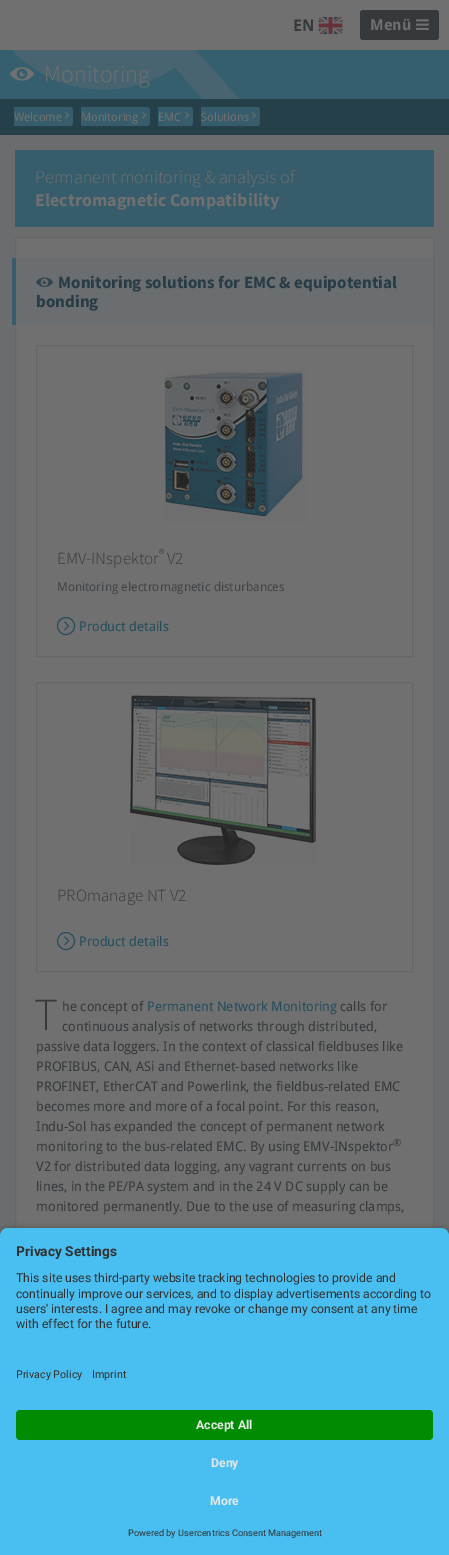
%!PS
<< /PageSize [449 1555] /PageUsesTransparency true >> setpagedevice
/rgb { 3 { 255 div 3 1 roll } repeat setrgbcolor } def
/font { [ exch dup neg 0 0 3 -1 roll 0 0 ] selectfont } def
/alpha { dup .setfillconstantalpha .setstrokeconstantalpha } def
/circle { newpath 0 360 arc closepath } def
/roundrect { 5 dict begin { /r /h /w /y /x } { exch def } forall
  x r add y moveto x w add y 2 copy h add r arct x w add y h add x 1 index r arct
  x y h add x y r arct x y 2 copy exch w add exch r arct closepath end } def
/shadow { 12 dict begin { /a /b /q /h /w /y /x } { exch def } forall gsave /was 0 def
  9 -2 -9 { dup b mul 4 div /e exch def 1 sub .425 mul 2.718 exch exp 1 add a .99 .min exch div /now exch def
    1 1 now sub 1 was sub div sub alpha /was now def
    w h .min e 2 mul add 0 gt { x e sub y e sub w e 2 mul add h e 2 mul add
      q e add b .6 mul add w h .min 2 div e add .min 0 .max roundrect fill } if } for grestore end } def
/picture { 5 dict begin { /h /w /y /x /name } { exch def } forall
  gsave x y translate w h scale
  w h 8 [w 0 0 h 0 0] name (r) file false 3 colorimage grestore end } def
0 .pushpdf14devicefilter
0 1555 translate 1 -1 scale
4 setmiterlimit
107 108 109 rgb
0 0 449 1555 rectfill
112 112 112 rgb
0 0 449 50 rectfill
53 57 59 rgb
360 10 79 30 3 roundrect fill
(img/1.rgb) 416 19 13 11 picture
(img/2.rgb) 318 16 25 19 picture
53 95 111 rgb
0 50 449 49 rectfill
(img/3.rgb) 12 50 227 49 picture
(img/4.rgb) 10 67 24 14 picture
38 64 74 rgb
0 99 449 36 rectfill
55 93 108 rgb
14 107 moveto 70 107 lineto 71.5 107 73 108.5 73 110 curveto 73 123 lineto 73 124.5 71.5 126 70 126 curveto 14 126 lineto closepath fill
(img/5.rgb) 65 112 4 7 picture
81 107 moveto 147 107 lineto 148.5 107 150 108.5 150 110 curveto 150 123 lineto 150 124.5 148.5 126 147 126 curveto 81 126 lineto closepath fill
(img/5.rgb) 142 112 4 7 picture
158 107 moveto 190 107 lineto 191.5 107 193 108.5 193 110 curveto 193 123 lineto 193 124.5 191.5 126 190 126 curveto 158 126 lineto closepath fill
(img/5.rgb) 185 112 4 7 picture
201 107 moveto 257 107 lineto 258.5 107 260 108.5 260 110 curveto 260 123 lineto 260 124.5 258.5 126 257 126 curveto 201 126 lineto closepath fill
(img/5.rgb) 252 112 4 7 picture
15 150 419 77 rectfill
112 112 112 rgb
16 238 417 990 rectfill
103 102 103 rgb
15.5 237.5 418 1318 rectstroke
107 110 112 rgb
16 258 417 67 rectfill
55 93 108 rgb
12 258 4 67 rectfill
(img/6.rgb) 36 277 18 10 picture
103 102 103 rgb
36.5 345.5 376 311 rectstroke
(img/7.rgb) 164 370 143 152 picture
36 77 92 rgb
66 626 8.5 circle stroke
(img/8.rgb) 64 621 6 10 picture
103 102 103 rgb
36.5 682.5 376 289 rectstroke
(img/9.rgb) 130 695 186 170 picture
36 77 92 rgb
66 941 8.5 circle stroke
(img/8.rgb) 64 936 6 10 picture
0 0 0 rgb
0 1231 449 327 8 3.5 0.8 shadow
73 191 241 rgb
8 1228 moveto 441 1228 lineto 445.5 1228 449 1231.5 449 1236 curveto 449 1353 lineto 0 1353 lineto 0 1236 lineto 0 1231.5 3.5 1228 8 1228 curveto closepath fill
0 1353 449 202 rectfill
0 139 2 rgb
16 1410 417 30 4 roundrect fill
/DroidSans-Bold 15 font
112 112 112 rgb
370 30 moveto (Menü) show
/DroidSans-Bold 16 font
53 57 59 rgb
293 31 moveto (EN) show
/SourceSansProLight-Light 24 font
112 112 112 rgb
44 82 moveto (Monitoring) show
/DroidSans-Regular 11.5 font
[
  [(Welcome) 14 121]
  [(Monitoring) 81 121]
  [(EMC) 158 121]
  [(Solutions) 201 121]
] { aload pop moveto show } forall
/SourceSansProLight-Light 18 font
35 183 moveto (Permanent monitoring & analysis of) show
/SourceSansPro-Bold 18 font
35 206 moveto (Electromagnetic Compatibility) show
/SourceSansPro-Bold 17.1 font
40 60 69 rgb
58 288 moveto (Monitoring solutions for EMC & equipotential) show
36 307 moveto (bonding) show
/SourceSansProLight-Light 17.1 font
53 57 59 rgb
57 564 moveto (EMV-INspektor) show
/SourceSansProLight-Light 13 font
159 558 moveto (®) show
/SourceSansProLight-Light 17.1 font
167 564 moveto (V2) show
/DroidSans-Regular 12.3 font
65 68 70 rgb
57 591 moveto (Monitoring electromagnetic disturbances) show
/DroidSans-Regular 13.3 font
36 77 92 rgb
79 631 moveto (Product details) show
/SourceSansProLight-Light 17.1 font
53 57 59 rgb
57 901 moveto (PROmanage NT V2) show
/DroidSans-Regular 13.3 font
36 77 92 rgb
79 946 moveto (Product details) show
/SourceSansProLight-Light 46 font
53 57 59 rgb
34 1030 moveto (T) show
/DroidSans-Regular 13.3 font
62 1011 moveto (he concept of) show
36 77 92 rgb
147 1011 moveto (Permanent Network Monitoring) show
53 57 59 rgb
[
  [(calls for) 340 1011]
  [(continuous analysis of networks through distributed,) 62 1031]
  [(passive data loggers. In the context of classical fieldbuses like) 36 1051]
  [(PROFIBUS, CAN, ASi and Ethernet-based networks like) 36 1071]
  [(PROFINET, EtherCAT and Powerlink, the fieldbus-related EMC) 36 1091]
  [(becomes more and more of a focal point. For this reason,) 36 1111]
  [(Indu-Sol has expanded the concept of permanent network) 36 1131]
  [(monitoring to the bus-related EMC. By using EMV-INspektor) 36 1151]
] { aload pop moveto show } forall
/DroidSans-Regular 10 font
393 1146 moveto (®) show
/DroidSans-Regular 13.3 font
[
  [(V2 for distributed data logging, any vagrant currents on bus) 36 1171]
  [(lines, in the PE/PA system and in the 24 V DC supply can be) 36 1191]
  [(monitored permanently. Due to the use of measuring clamps,) 36 1211]
] { aload pop moveto show } forall
/Roboto-Bold 13.75 font
48 48 48 rgb
16 1256 moveto (Privacy Settings) show
/Roboto-Regular 12.25 font
[
  [(This site uses third-party website tracking technologies to provide and) 16 1282]
  [(continually improve our services, and to display advertisements according to) 16 1298]
  [(users' interests. I agree and may revoke or change my consent at any time) 16 1313]
  [(with effect for the future.) 16 1328]
] { aload pop moveto show } forall
/Roboto-Regular 10.75 font
16 1378 moveto (Privacy Policy) show
92 1378 moveto (Imprint) show
/Roboto-Bold 12.25 font
230 230 230 rgb
[
  [(Accept All) 196 1429]
  [(Deny) 211 1467]
  [(More) 210 1505]
] { aload pop moveto show } forall
/Roboto-Regular 9.2 font
48 48 48 rgb
128 1536 moveto (Powered by Usercentrics Consent Management) show
.poppdf14devicefilter showpage
